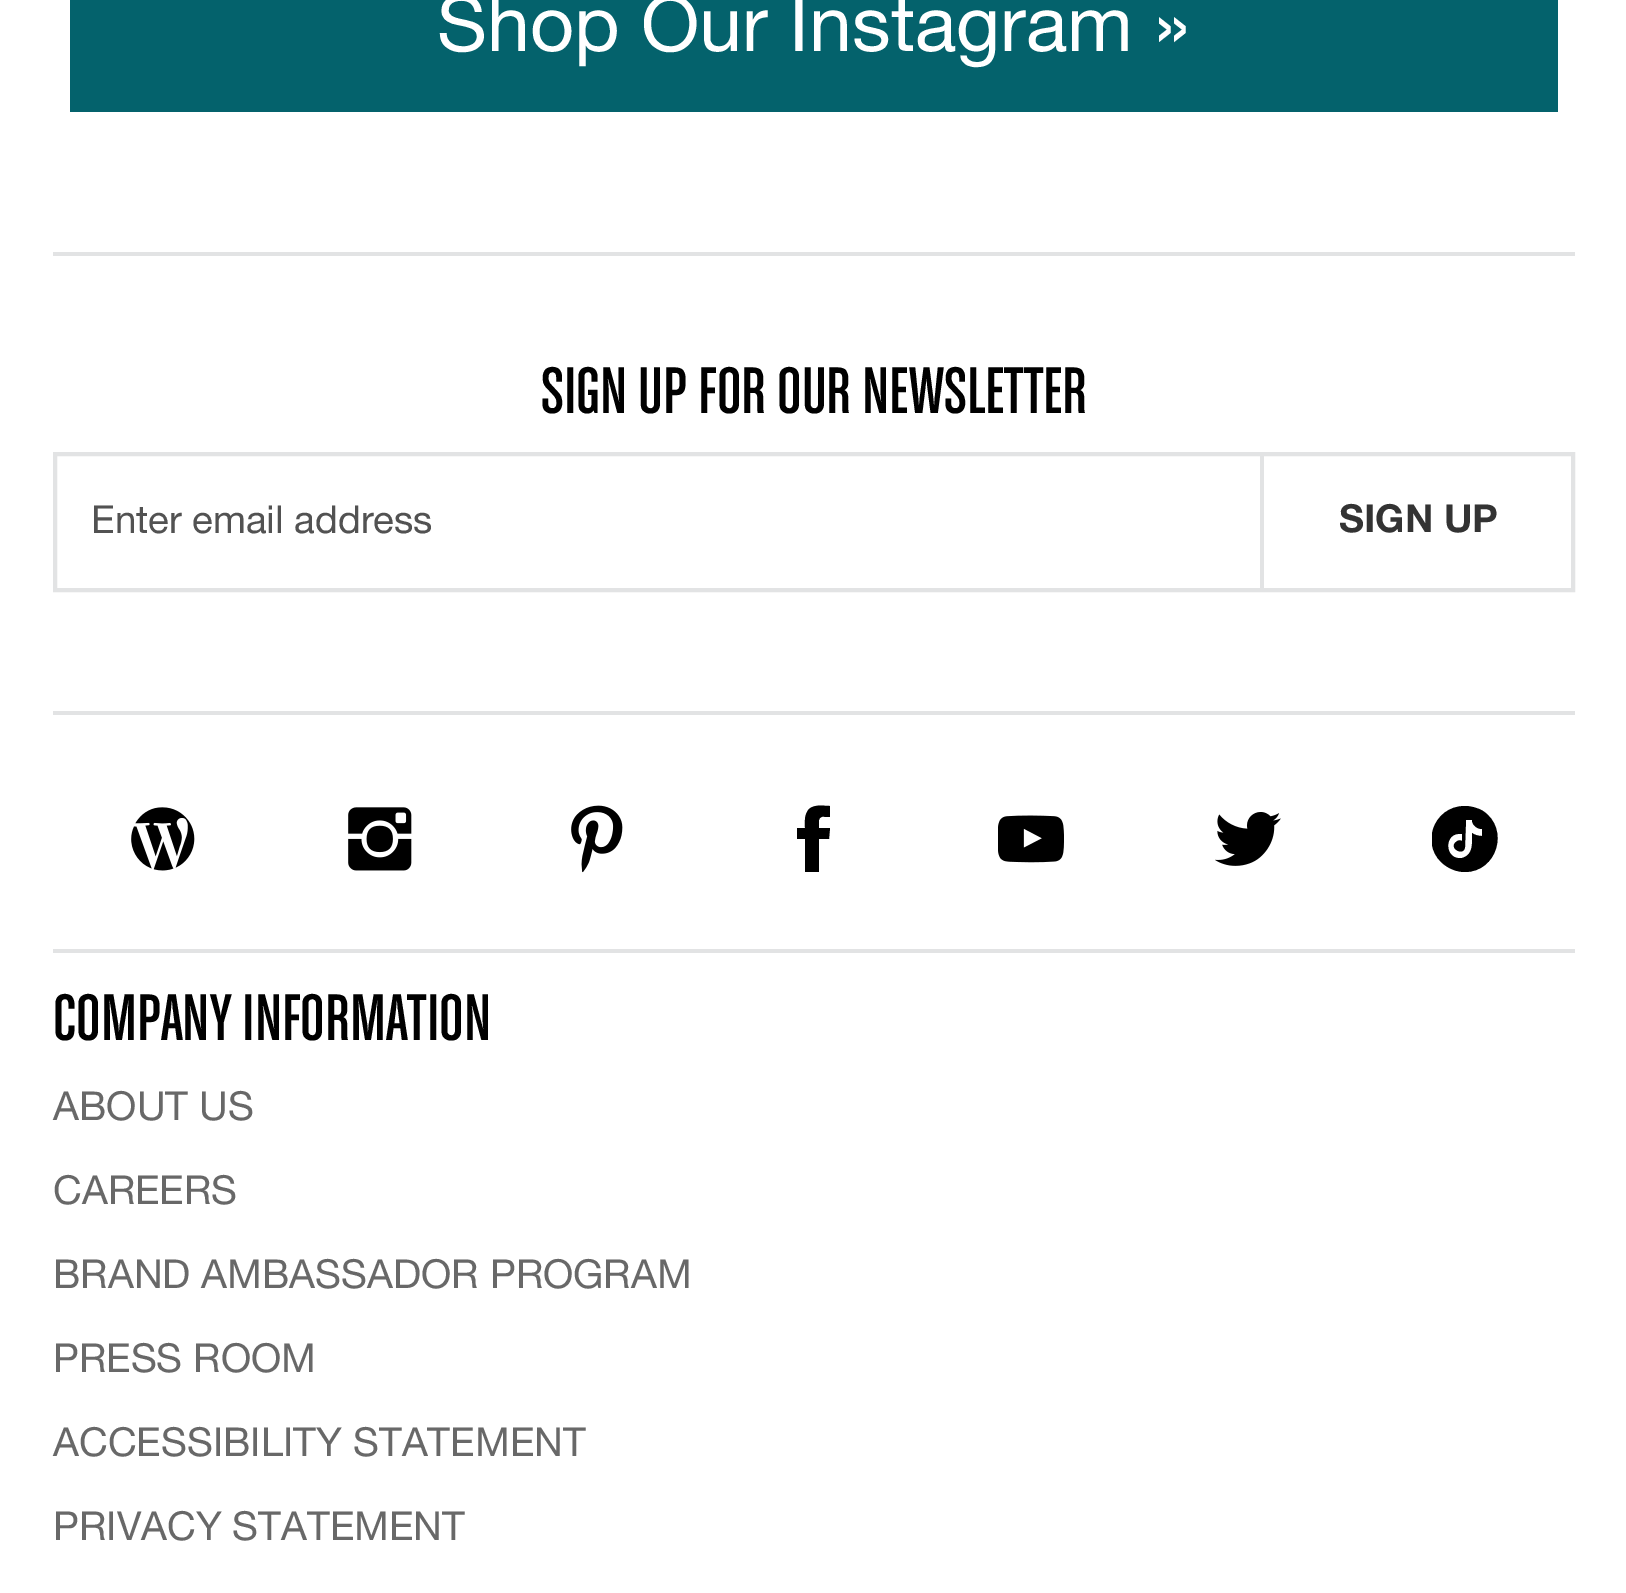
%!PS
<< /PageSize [1626 1593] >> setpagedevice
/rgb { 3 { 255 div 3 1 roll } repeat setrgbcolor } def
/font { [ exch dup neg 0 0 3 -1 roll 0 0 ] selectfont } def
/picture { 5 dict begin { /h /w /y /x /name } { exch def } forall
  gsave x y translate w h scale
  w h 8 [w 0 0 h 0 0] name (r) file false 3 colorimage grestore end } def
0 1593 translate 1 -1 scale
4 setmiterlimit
255 255 255 rgb
0 0 1626 1593 rectfill
226 227 228 rgb
53 252 1522 4 rectfill
4 98 108 rgb
70 0 1488 112 rectfill
226 227 228 rgb
4 setlinewidth
55 454 1518 136 rectstroke
1260 452 4 140 rectfill
53 711 1522 4 rectfill
(img/1.rgb) 131 807 64 64 picture
(img/2.rgb) 348 807 64 64 picture
(img/3.rgb) 571 805 52 68 picture
0 0 0 rgb
820 818 moveto 821 817 823 816 825 817 curveto 830 817 lineto 830 806 lineto 823 806 815 804 809 809 curveto 804 815 805 821 805 828 curveto 797 828 lineto 797 839 lineto 805 839 lineto 805 872 lineto 819 872 lineto 819 839 lineto 829 839 lineto 830 828 lineto 819 828 lineto 819 825 818 820 820 818 curveto closepath fill
(img/4.rgb) 998 815 66 48 picture
(img/5.rgb) 1215 812 66 54 picture
gsave
1432 791 66 95 rectclip
1465 806 moveto 1432 806 1419 848 1446 866 curveto 1452 870 1458 872 1465 872 curveto 1497 872 1510 829 1483 811 curveto 1478 808 1471 806 1465 806 curveto closepath 1482 836 moveto 1478 836 1475 835 1472 833 curveto 1472 842 1474 855 1462 858 curveto 1444 861 1443 831 1462 834 curveto 1462 841 lineto 1460 840 1458 840 1456 842 curveto 1448 848 1464 857 1465 847 curveto 1466 820 lineto 1472 820 lineto 1472 825 1477 829 1482 829 curveto closepath fill
grestore
226 227 228 rgb
53 949 1522 4 rectfill
/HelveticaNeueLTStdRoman-Regular 77 font
255 255 255 rgb
437 51 moveto (Shop Our Instagram ») show
/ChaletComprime-Regular 70 font
0 0 0 rgb
541 413 moveto (SIGN UP FOR OUR NEWSLETTER) show
/HelveticaNeueLTStdRoman-Regular 38.5 font
82 82 82 rgb
91 533 moveto (Enter email address) show
/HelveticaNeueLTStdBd-Bold 38.5 font
51 51 51 rgb
1339 532 moveto (SIGN UP) show
/ChaletComprime-Regular 70 font
0 0 0 rgb
53 1040 moveto (COMPANY INFORMATION) show
/HelveticaNeueLTStdRoman-Regular 39.9 font
104 104 104 rgb
[
  [(ABOUT US) 53 1120]
  [(CAREERS) 53 1204]
  [(BRAND AMBASSADOR PROGRAM) 53 1288]
  [(PRESS ROOM) 53 1372]
  [(ACCESSIBILITY STATEMENT) 53 1456]
  [(PRIVACY STATEMENT) 53 1540]
] { aload pop moveto show } forall
showpage
